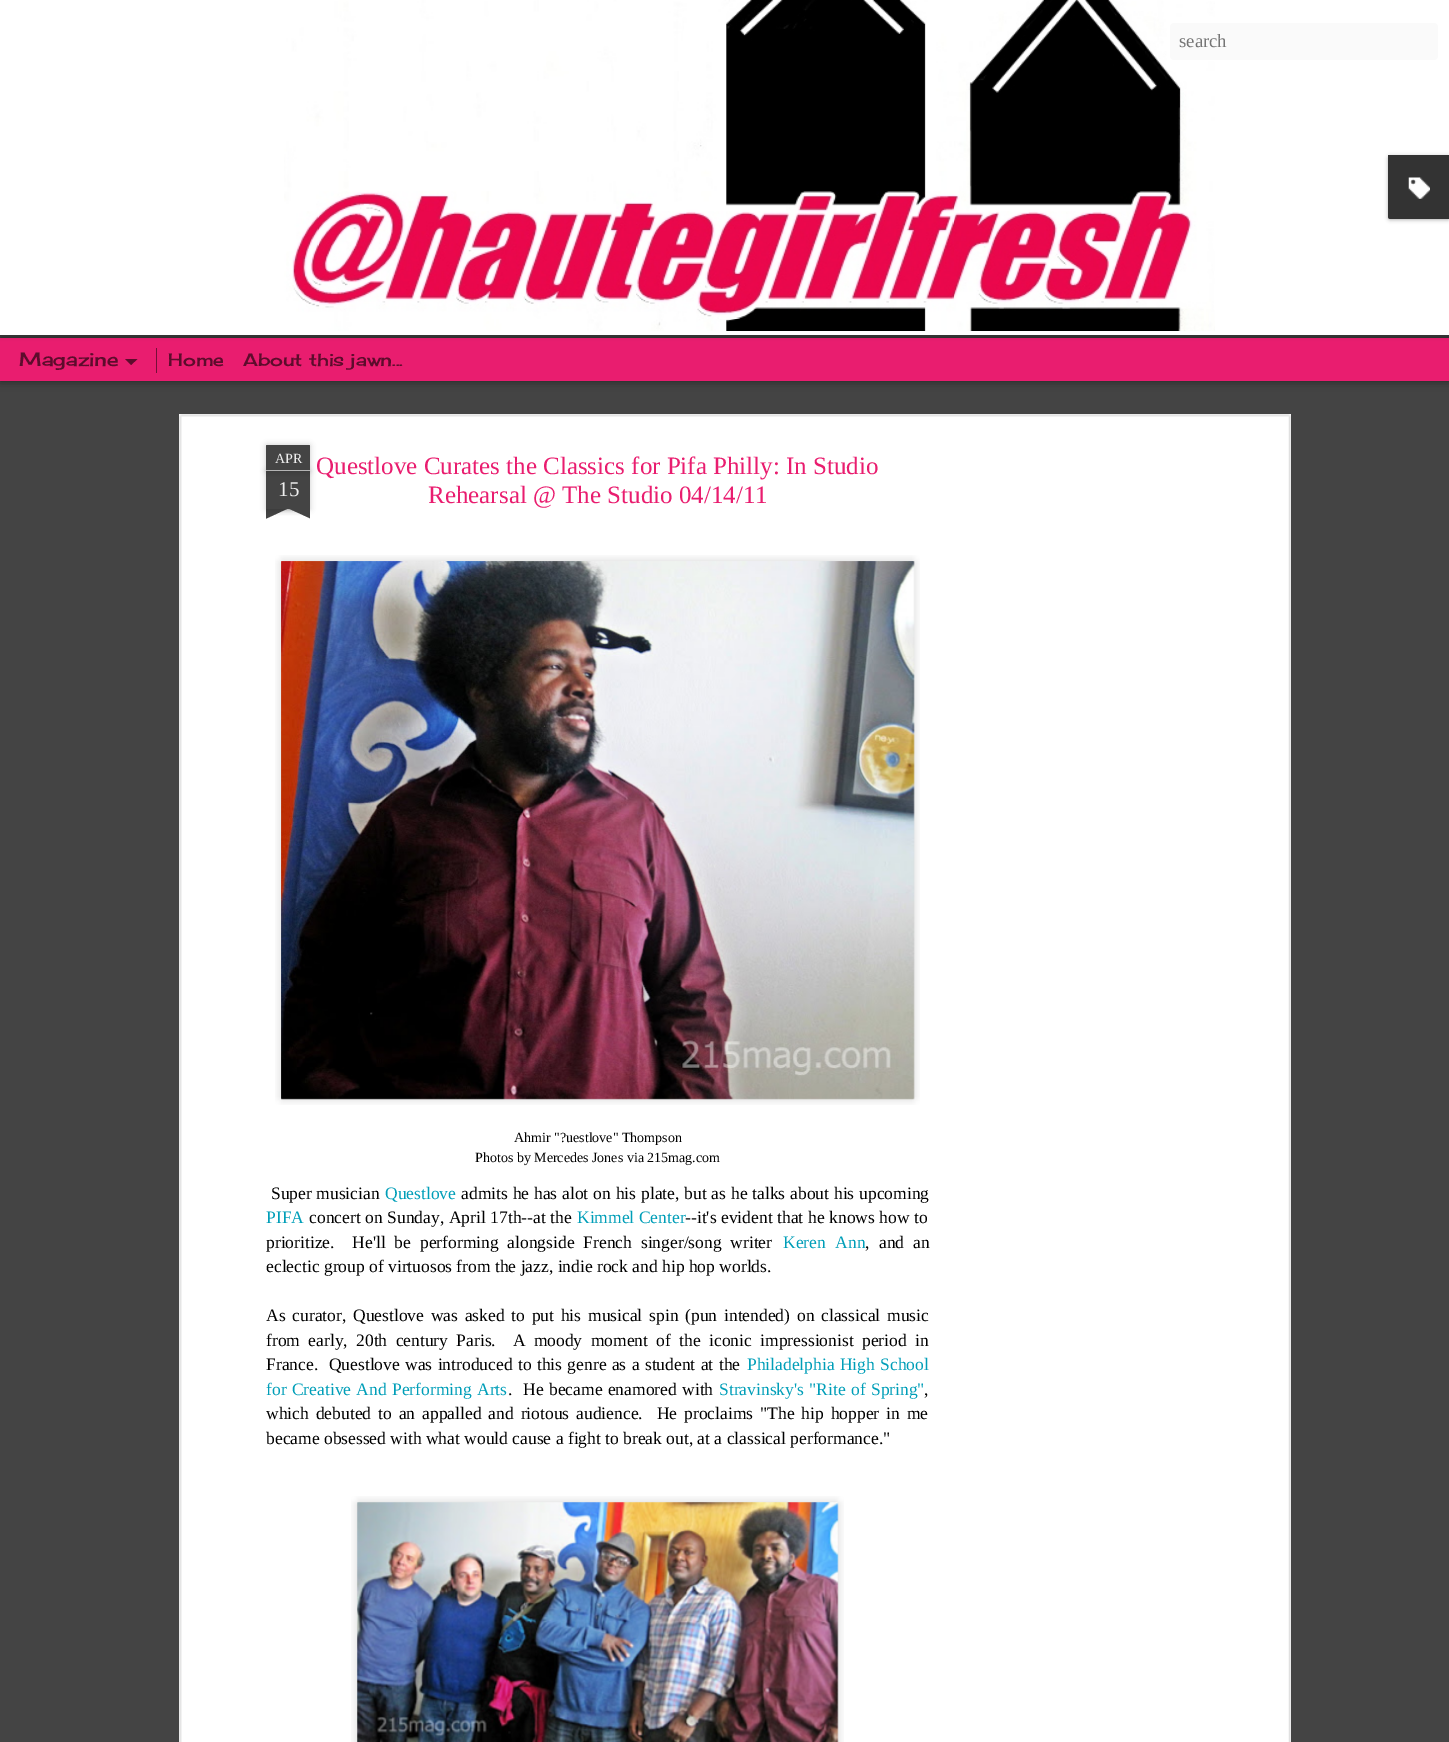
%!PS
<< /PageSize [1449 1742] /PageUsesTransparency true >> setpagedevice
/rgb { 3 { 255 div 3 1 roll } repeat setrgbcolor } def
/font { [ exch dup neg 0 0 3 -1 roll 0 0 ] selectfont } def
/alpha { dup .setfillconstantalpha .setstrokeconstantalpha } def
/roundrect { 5 dict begin { /r /h /w /y /x } { exch def } forall
  x r add y moveto x w add y 2 copy h add r arct x w add y h add x 1 index r arct
  x y h add x y r arct x y 2 copy exch w add exch r arct closepath end } def
/shadow { 12 dict begin { /a /b /q /h /w /y /x } { exch def } forall gsave /was 0 def
  9 -2 -9 { dup b mul 4 div /e exch def 1 sub .425 mul 2.718 exch exp 1 add a .99 .min exch div /now exch def
    1 1 now sub 1 was sub div sub alpha /was now def
    w h .min e 2 mul add 0 gt { x e sub y e sub w e 2 mul add h e 2 mul add
      q e add b .6 mul add w h .min 2 div e add .min 0 .max roundrect fill } if } for grestore end } def
/picture { 5 dict begin { /h /w /y /x /name } { exch def } forall
  gsave x y translate w h scale
  w h 8 [w 0 0 h 0 0] name (r) file false 3 colorimage grestore end } def
0 .pushpdf14devicefilter
0 1742 translate 1 -1 scale
4 setmiterlimit
68 68 68 rgb
0 0 1449 1742 rectfill
0 0 0 rgb
0 338 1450 43 0 5 0.5 shadow
233 29 111 rgb
0 338 1449 43 rectfill
0 0 0 rgb
0 0 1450 335 0 3 0.3 shadow
255 255 255 rgb
0 0 1449 335 rectfill
(img/1.rgb) 284 0 931 331 picture
250 250 250 rgb
1170 23 268 37 4 roundrect fill
93 12 44 rgb
125 359 moveto 137.5 359 lineto 131 365 lineto closepath fill
117 15 56 rgb
156 348 1 25 rectfill
0 0 0 rgb
1388 156 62 64 2.5 2 0.3 shadow
51 51 51 rgb
1388 155 moveto 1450 155 lineto 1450 219 lineto 1390.5 219 lineto 1389 219 1388 218 1388 216.5 curveto closepath fill
(img/2.rgb) 1408 177 22 22 picture
255 255 255 rgb
179 414 1112 1328 rectfill
(img/3.rgb) 179 414 1112 1328 picture
0 0 0 rgb
266 471 44 38 0 3 0.2 shadow
68 68 68 rgb
266 471 44 38 rectfill
0 0 0 rgb
266 445 44 26 1 3 0.2 shadow
68 68 68 rgb
267 445 moveto 309 445 lineto 309.5 445 310 445.5 310 446 curveto 310 471 lineto 266 471 lineto 266 446 lineto 266 445.5 266.5 445 267 445 curveto closepath fill
180 180 180 rgb
266 470 44 1 rectfill
gsave
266 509 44 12 rectclip
0 0 0 rgb
255 496 63 13 0 3 0.2 shadow
grestore
gsave
266 509 44 12 rectclip
68 68 68 rgb
255 510 moveto 312 484 lineto 317 495 lineto 261 521 lineto closepath fill
grestore
gsave
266 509 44 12 rectclip
0 0 0 rgb
259 496 62 13 0 3 0.2 shadow
grestore
gsave
266 509 44 12 rectclip
68 68 68 rgb
264 484 moveto 321 510 lineto 316 521 lineto 259 495 lineto closepath fill
grestore
(img/4.rgb) 275 555 645 550 picture
(img/5.rgb) 281 561 634 539 picture
(img/6.rgb) 351 1496 493 246 picture
(img/7.rgb) 357 1502 482 240 picture
/LiberationSerif-Regular 18.75 font
117 117 117 rgb
1179 47 moveto (search) show
/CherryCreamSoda-Regular 18.75 font
93 12 44 rgb
19 366 moveto (Magazine) show
/CherryCreamSoda-Regular 17.5 font
168 366 moveto (Home) show
243 366 moveto (About this jawn...) show
/LiberationSerif-Regular 14 font
238 238 238 rgb
275 463 moveto (APR) show
/LiberationSerif-Regular 21 font
278 496 moveto (15) show
/LiberationSerif-Regular 25 font
233 29 111 rgb
316 474 moveto (Questlove Curates the Classics for Pifa Philly: In Studio) show
428 503 moveto (Rehearsal @ The Studio 04/14/11) show
/LiberationSerif-Regular 14 font
0 0 0 rgb
514 1142 moveto (Ahmir "?uestlove" Thompson) show
475 1162 moveto (Photos by Mercedes Jones via 215mag.com) show
/LiberationSerif-Regular 17.5 font
271 1199 moveto (Super musician) show
0 158 184 rgb
385 1199 moveto (Questlove) show
0 0 0 rgb
461 1199 moveto 0.5 0 32 (admits he has alot on his plate, but as he talks about his upcoming) widthshow
0 158 184 rgb
266 1223 moveto (PIFA) show
0 0 0 rgb
309 1223 moveto 0.25 0 32 (concert on Sunday, April 17th--at the) widthshow
0 158 184 rgb
577 1223 moveto (Kimmel Center) show
0 0 0 rgb
685 1223 moveto 0.25 0 32 (--it's evident that he knows how to) widthshow
266 1248 moveto 4.5 0 32 (prioritize.  He'll be performing alongside French singer/song writer) widthshow
0 158 184 rgb
783 1248 moveto 5 0 32 (Keren Ann) widthshow
0 0 0 rgb
865 1248 moveto 5 0 32 (, and an) widthshow
266 1272 moveto (eclectic group of virtuosos from the jazz, indie rock and hip hop worlds.) show
266 1321 moveto 2.4 0 32 (As curator, Questlove was asked to put his musical spin \(pun intended\) on classical music) widthshow
266 1346 moveto 4 0 32 (from early, 20th century Paris.  A moody moment of the iconic impressionist period in) widthshow
266 1370 moveto 1 0 32 (France.  Questlove was introduced to this genre as a student at the) widthshow
0 158 184 rgb
747 1370 moveto 1 0 32 (Philadelphia High School) widthshow
266 1395 moveto 1 0 32 (for Creative And Performing Arts) widthshow
0 0 0 rgb
508 1395 moveto 1 0 32 (.  He became enamored with) widthshow
0 158 184 rgb
719 1395 moveto 1 0 32 (Stravinsky's "Rite of Spring") widthshow
0 0 0 rgb
924 1395 moveto (,) show
266 1419 moveto 2.6 0 32 (which debuted to an appalled and riotous audience.  He proclaims "The hip hopper in me) widthshow
266 1444 moveto (became obsessed with what would cause a fight to break out, at a classical performance.") show
.poppdf14devicefilter showpage
